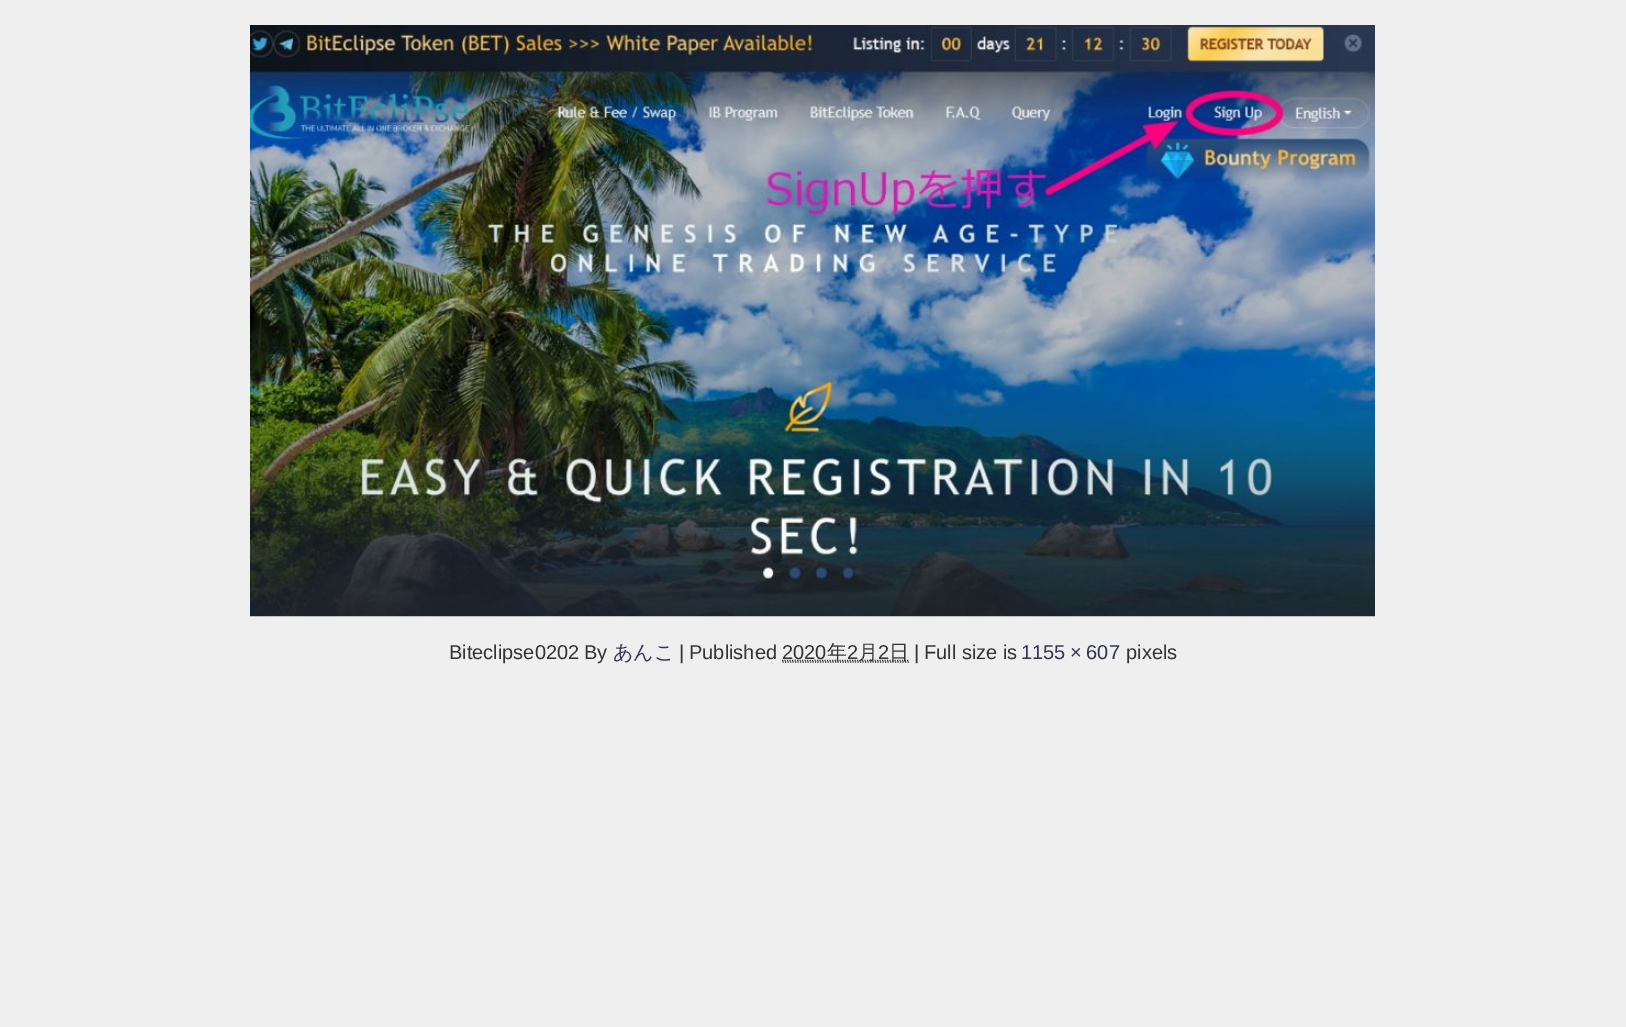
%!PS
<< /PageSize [1626 1027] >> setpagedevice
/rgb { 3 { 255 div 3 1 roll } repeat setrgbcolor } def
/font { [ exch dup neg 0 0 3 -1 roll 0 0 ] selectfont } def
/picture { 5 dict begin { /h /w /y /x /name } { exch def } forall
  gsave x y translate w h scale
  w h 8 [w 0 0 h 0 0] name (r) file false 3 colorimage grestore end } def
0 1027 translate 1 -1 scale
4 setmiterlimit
239 239 239 rgb
0 0 1626 1027 rectfill
(img/1.rgb) 250 25 1125 592 picture
51 51 51 rgb
1.2 setlinewidth
[1.25 1.25] 0 setdash
782.5 662 moveto 909 662 lineto stroke
782 660.5 moveto 909 660.5 lineto stroke
/LiberationSans-Regular 20 font
449 659 moveto (Biteclipse0202) show
584 659 moveto (By) show
/WenQuanYiZenHei-Medium 20 font
51 51 85 rgb
613 659 moveto (あんこ) show
/LiberationSans-Regular 20 font
51 51 51 rgb
[
  [(|) 679 659]
  [(Published) 689 659]
  [(2020) 782 659]
] { aload pop moveto show } forall
/WenQuanYiZenHei-Medium 20 font
827 659 moveto (年) show
/LiberationSans-Regular 20 font
847 659 moveto (2) show
/WenQuanYiZenHei-Medium 20 font
858 659 moveto (月) show
/LiberationSans-Regular 20 font
878 659 moveto (2) show
/WenQuanYiZenHei-Medium 20 font
889 659 moveto (日) show
/LiberationSans-Regular 20 font
914 659 moveto (|) show
924 659 moveto (Full size is) show
51 51 85 rgb
1021 659 moveto -1 0 32 (1155 × 607) widthshow
51 51 51 rgb
1126 659 moveto (pixels) show
showpage
